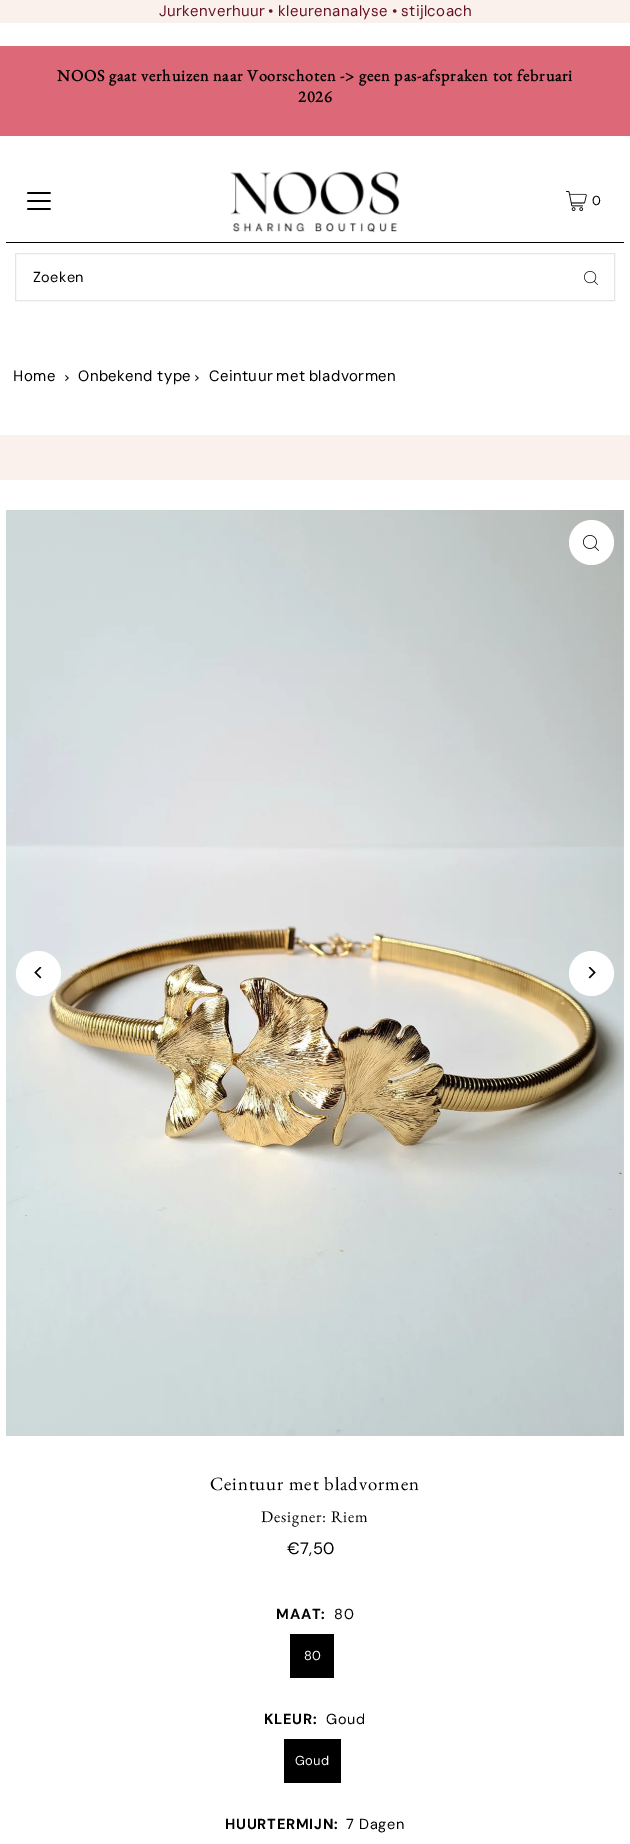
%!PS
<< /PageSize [630 1844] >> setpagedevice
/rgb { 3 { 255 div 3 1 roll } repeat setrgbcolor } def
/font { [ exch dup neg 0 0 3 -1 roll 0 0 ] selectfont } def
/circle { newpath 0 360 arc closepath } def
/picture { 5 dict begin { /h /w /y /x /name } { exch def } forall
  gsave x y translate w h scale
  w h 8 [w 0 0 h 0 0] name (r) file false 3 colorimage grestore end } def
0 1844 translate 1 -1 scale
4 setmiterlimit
255 255 255 rgb
0 0 630 1844 rectfill
[
  [0 0 630 23 250 241 237]
  [0 46 630 90 221 104 119]
  [6 242 618 1 0 0 0]
] { aload pop rgb rectfill } forall
(img/1.rgb) 27 192 24 18 picture
(img/2.rgb) 230 171 170 62 picture
(img/3.rgb) 566 191 21 20 picture
229 229 229 rgb
15.5 253.5 599 47 rectstroke
(img/4.rgb) 584 271 14 14 picture
(img/5.rgb) 65 375 4 6 picture
(img/5.rgb) 195 375 4 6 picture
250 241 237 rgb
0 435 630 45 rectfill
(img/6.rgb) 6 510 618 926 picture
255 255 255 rgb
591.5 542.5 22.5 circle fill
(img/7.rgb) 583 535 16 16 picture
38.5 973.5 22.5 circle fill
(img/8.rgb) 34 967 8 12 picture
591.5 973.5 22.5 circle fill
(img/9.rgb) 588 967 8 12 picture
0 0 0 rgb
290 1634 44 44 rectfill
284 1739 57 44 rectfill
/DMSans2-Regular 15 font
103 18 37 rgb
159 16 moveto 0.4 0 (Jurkenverhuur) ashow
268 16 moveto 0.4 0 (• kleurenanalyse •) ashow
401 16 moveto 0.4 0 (stijlcoach) ashow
/EBGaramond-Bold 16.15 font
0 0 0 rgb
57 81 moveto 0.8 0 (NOOS gaat verhuizen naar Voorschoten -> geen pas-afspraken tot februari) ashow
298 102 moveto 0.8 0 (2026) ashow
/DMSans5-Regular 13 font
592 205 moveto 0.4 0 (0) ashow
/DMSans-Regular 14.5 font
33 282 moveto 0.4 0 (Zoeken) ashow
/DMSans2-Regular 15 font
13 381 moveto 0.4 0 (Home) ashow
78 381 moveto 0.4 0 (Onbekend type) ashow
209 381 moveto -1 0 32 0.4 0 (Ceintuur met bladvormen) awidthshow
/EBGaramond-Regular 18.75 font
210 1490 moveto 0.9 0 (Ceintuur met bladvormen) ashow
/EBGaramond-Regular 16.15 font
261 1522 moveto 0.8 0 (Designer: Riem) ashow
/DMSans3-Regular 16.5 font
287 1554 moveto 0.4 0 (€7,50) ashow
/DMSans-Bold 14.5 font
276 1619 moveto 0.75 0 (MAAT:) ashow
/DMSans-Regular 14.5 font
334 1619 moveto 0.75 0 (80) ashow
/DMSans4-Regular 13 font
255 255 255 rgb
304 1660 moveto 0.4 0 (80) ashow
/DMSans-Bold 14.5 font
0 0 0 rgb
264 1724 moveto 0.75 0 (KLEUR:) ashow
/DMSans-Regular 14.5 font
326 1724 moveto 0.75 0 (Goud) ashow
/DMSans2-Regular 13 font
255 255 255 rgb
295 1765 moveto 0.4 0 (Goud) ashow
/DMSans-Bold 14.5 font
0 0 0 rgb
225 1829 moveto 0.75 0 (HUURTERMIJN:) ashow
/DMSans-Regular 14.5 font
346 1829 moveto 0.75 0 (7 Dagen) ashow
showpage
